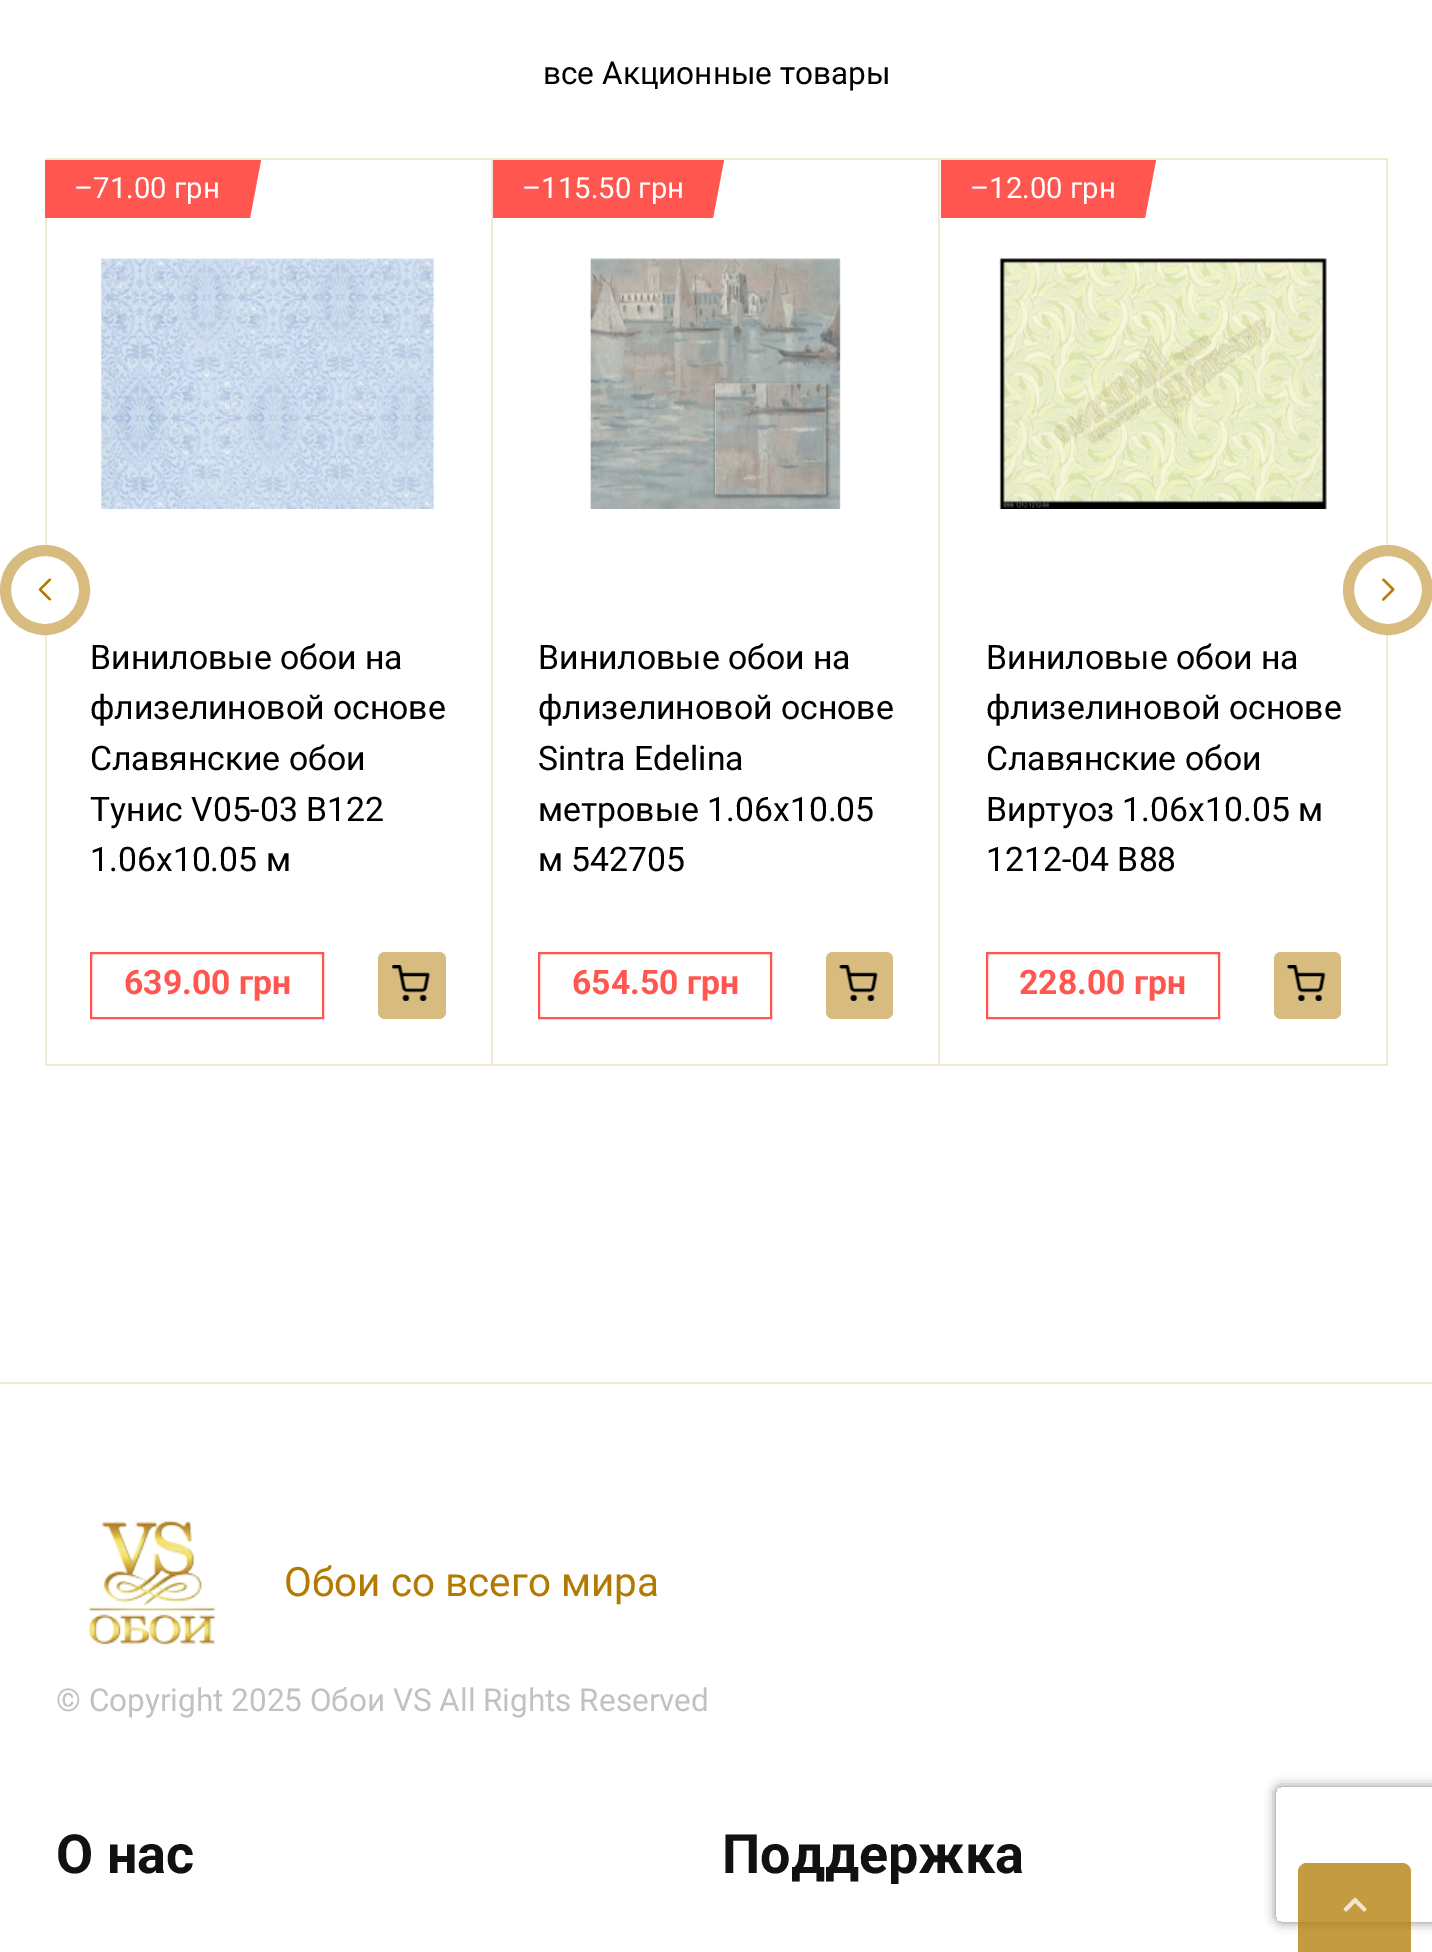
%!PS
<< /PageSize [1432 1952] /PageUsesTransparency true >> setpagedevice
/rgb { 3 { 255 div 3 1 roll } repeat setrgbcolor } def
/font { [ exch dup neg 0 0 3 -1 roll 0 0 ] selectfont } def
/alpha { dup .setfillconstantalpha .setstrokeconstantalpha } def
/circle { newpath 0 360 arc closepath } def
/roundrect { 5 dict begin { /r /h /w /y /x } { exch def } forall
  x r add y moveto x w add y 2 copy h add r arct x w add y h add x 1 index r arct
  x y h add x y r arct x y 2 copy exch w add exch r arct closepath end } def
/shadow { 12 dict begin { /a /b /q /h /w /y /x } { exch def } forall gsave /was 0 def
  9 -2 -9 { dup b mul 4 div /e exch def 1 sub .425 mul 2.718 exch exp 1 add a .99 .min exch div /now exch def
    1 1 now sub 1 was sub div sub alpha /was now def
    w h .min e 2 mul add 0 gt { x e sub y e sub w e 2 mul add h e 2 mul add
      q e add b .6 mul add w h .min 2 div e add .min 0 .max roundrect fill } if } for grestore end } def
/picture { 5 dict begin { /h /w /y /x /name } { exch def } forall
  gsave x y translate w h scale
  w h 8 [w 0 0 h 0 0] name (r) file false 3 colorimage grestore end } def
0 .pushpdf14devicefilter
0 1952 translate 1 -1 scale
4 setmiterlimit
255 255 255 rgb
0 0 1432 1952 rectfill
[
  [45 218 2 846 242 233 213]
  [45 158 1343 2 242 233 213]
  [45 1064 1343 2 242 233 213]
  [491 160 2 904 242 233 213]
  [45 160 205 58 255 86 80]
] { aload pop rgb rectfill } forall
250 160 moveto 261 160 lineto 250 218 lineto closepath fill
(img/1.rgb) 101 258 334 251 picture
2 setlinewidth
91 953 232 65 rectstroke
216 188 127 rgb
378 952 68 67 7 roundrect fill
(img/2.rgb) 392 965 38 36 picture
242 233 213 rgb
938 160 2 904 rectfill
255 86 80 rgb
493 160 220 58 rectfill
713 160 moveto 724 160 lineto 713 218 lineto closepath fill
(img/3.rgb) 589 258 252 251 picture
539 953 232 65 rectstroke
216 188 127 rgb
826 952 67 67 7 roundrect fill
(img/4.rgb) 839 965 39 36 picture
242 233 213 rgb
1386 160 2 904 rectfill
255 86 80 rgb
941 160 204 58 rectfill
1145 160 moveto 1156 160 lineto 1145 218 lineto closepath fill
(img/5.rgb) 999 258 328 251 picture
987 953 232 65 rectstroke
216 188 127 rgb
1274 952 67 67 7 roundrect fill
(img/6.rgb) 1287 965 39 36 picture
255 255 255 rgb
45 590 39.5 circle gsave fill grestore
216 188 127 rgb
11 setlinewidth
stroke
(img/7.rgb) 38 578 14 23 picture
255 255 255 rgb
1388 590 39.5 circle gsave fill grestore
216 188 127 rgb
stroke
(img/8.rgb) 1382 577 13 24 picture
242 233 213 rgb
0 1382 1432 2 rectfill
(img/9.rgb) 88 1520 128 125 picture
gsave
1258 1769 moveto 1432 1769 lineto 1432 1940 lineto 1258 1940 lineto closepath 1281 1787 moveto 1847 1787 lineto 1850 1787 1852 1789 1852 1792 curveto 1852 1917 lineto 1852 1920 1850 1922 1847 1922 curveto 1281 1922 lineto 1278 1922 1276 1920 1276 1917 curveto 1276 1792 lineto 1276 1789 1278 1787 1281 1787 curveto closepath eoclip newpath
128 128 128 rgb
1276 1787 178 135 5 5.5 1 shadow
grestore
0.75 alpha
178 122 1 rgb
1307 1863 moveto 1402 1863 lineto 1407 1863 1411 1867 1411 1872 curveto 1411 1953 lineto 1298 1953 lineto 1298 1872 lineto 1298 1867 1302 1863 1307 1863 curveto closepath fill
1 alpha
(img/10.rgb) 1343 1897 24 15 picture
/Roboto-Regular 31.5 font
0 0 0 rgb
543 84 moveto (все Акционные товары) show
/Roboto-Regular 29.25 font
255 255 255 rgb
74 198 moveto (–71.00 грн) show
/Roboto-Regular 33.75 font
0 0 0 rgb
[
  [(Виниловые обои на) 90 669]
  [(флизелиновой основе) 90 719]
  [(Славянские обои) 90 770]
  [(Тунис V05-03 В122) 90 821]
  [(1.06х10.05 м) 90 871]
] { aload pop moveto show } forall
/Roboto-Bold 33.75 font
255 86 80 rgb
124 994 moveto (639.00 грн) show
/Roboto-Regular 29.25 font
255 255 255 rgb
522 198 moveto (–115.50 грн) show
/Roboto-Regular 33.75 font
0 0 0 rgb
[
  [(Виниловые обои на) 538 669]
  [(флизелиновой основе) 538 719]
  [(Sintra Edelina) 538 770]
  [(метровые 1.06х10.05) 538 821]
  [(м 542705) 538 871]
] { aload pop moveto show } forall
/Roboto-Bold 33.75 font
255 86 80 rgb
572 994 moveto (654.50 грн) show
/Roboto-Regular 29.25 font
255 255 255 rgb
970 198 moveto (–12.00 грн) show
/Roboto-Regular 33.75 font
0 0 0 rgb
[
  [(Виниловые обои на) 986 669]
  [(флизелиновой основе) 986 719]
  [(Славянские обои) 986 770]
  [(Виртуоз 1.06х10.05 м) 986 821]
  [(1212-04 В88) 986 871]
] { aload pop moveto show } forall
/Roboto-Bold 33.75 font
255 86 80 rgb
1019 994 moveto (228.00 грн) show
/Roboto-Regular 40.5 font
178 122 1 rgb
284 1596 moveto (Обои со всего мира) show
/Roboto-Regular 31.5 font
193 193 193 rgb
56 1711 moveto (© Copyright 2025 Обои VS All Rights Reserved) show
/Roboto-Bold 54 font
17 17 17 rgb
56 1873 moveto (О нас) show
722 1873 moveto (Поддержка) show
.poppdf14devicefilter showpage
